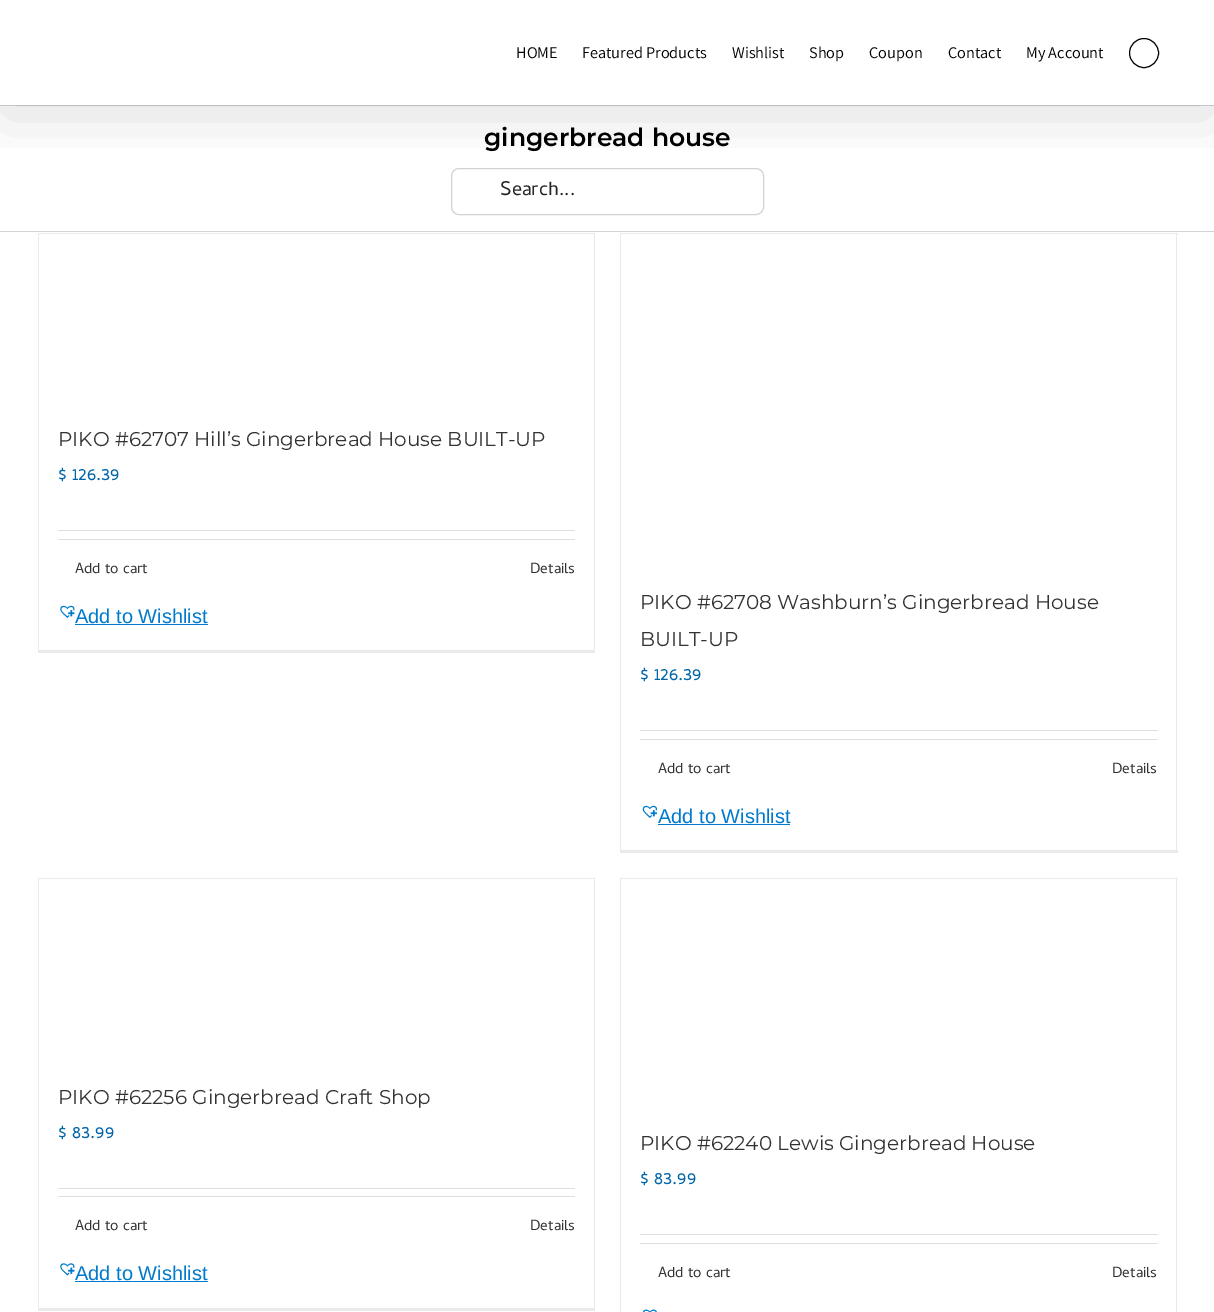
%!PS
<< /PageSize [1214 1312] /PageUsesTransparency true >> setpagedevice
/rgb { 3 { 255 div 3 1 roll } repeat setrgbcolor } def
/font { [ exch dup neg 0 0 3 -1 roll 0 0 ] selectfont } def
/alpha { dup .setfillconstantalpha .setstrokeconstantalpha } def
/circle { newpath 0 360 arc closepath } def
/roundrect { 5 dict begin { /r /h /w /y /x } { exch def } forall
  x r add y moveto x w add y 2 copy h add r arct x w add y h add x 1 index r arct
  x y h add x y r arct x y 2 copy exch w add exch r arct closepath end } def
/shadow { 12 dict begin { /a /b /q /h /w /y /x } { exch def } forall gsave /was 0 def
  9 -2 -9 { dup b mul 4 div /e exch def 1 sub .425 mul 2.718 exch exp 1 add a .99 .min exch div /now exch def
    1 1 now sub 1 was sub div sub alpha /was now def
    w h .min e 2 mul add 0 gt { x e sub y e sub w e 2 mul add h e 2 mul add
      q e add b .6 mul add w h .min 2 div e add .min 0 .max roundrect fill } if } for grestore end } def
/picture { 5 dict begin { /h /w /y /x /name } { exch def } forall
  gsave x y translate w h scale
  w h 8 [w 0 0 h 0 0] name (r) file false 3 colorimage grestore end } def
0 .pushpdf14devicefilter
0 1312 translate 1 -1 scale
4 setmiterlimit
255 255 255 rgb
0 0 1214 1312 rectfill
210 211 212 rgb
0 105 1214 1 rectfill
210 210 210 rgb
451.5 168.5 312 46 7.5 roundrect stroke
gsave
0 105 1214 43 rectclip
0 0 0 rgb
3 15 1210 100 0 31 0.14 shadow
grestore
0 0 0 rgb
1144 53 14.5 circle stroke
[
  [0 231 1214 1 210 211 212]
  [38 233 557 1 235 234 234]
  [594 233 1 420 235 234 234]
  [38 650 557 3 235 234 234]
  [38 233 1 420 235 234 234]
  [58 530 517 1 224 222 222]
  [58 539 517 1 224 222 222]
] { aload pop rgb rectfill } forall
(img/1.rgb) 60 605 15 13 picture
[
  [75 624 133 1 0 122 204]
  [620 233 558 1 235 234 234]
  [1176 233 1 620 235 234 234]
  [620 850 558 3 235 234 234]
  [620 233 1 620 235 234 234]
  [640 730 518 1 224 222 222]
  [640 739 518 1 224 222 222]
] { aload pop rgb rectfill } forall
(img/2.rgb) 642 805 15 13 picture
[
  [658 824 132 1 0 122 204]
  [38 878 557 1 235 234 234]
  [594 878 1 432 235 234 234]
  [38 1308 557 3 235 234 234]
  [38 878 1 432 235 234 234]
  [58 1188 517 1 224 222 222]
  [58 1196 517 1 224 222 222]
] { aload pop rgb rectfill } forall
(img/3.rgb) 60 1263 15 13 picture
[
  [75 1281 133 1 0 122 204]
  [620 878 558 1 235 234 234]
  [1176 878 1 434 235 234 234]
  [620 878 1 434 235 234 234]
  [640 1234 518 1 224 222 222]
  [640 1243 518 1 224 222 222]
] { aload pop rgb rectfill } forall
(img/4.rgb) 642 1309 15 3 picture
/Assistant-ExtraLight 16.25 font
0 0 0 rgb
[
  [(HOME) 516 58]
  [(Featured Products) 582 58]
  [(Wishlist) 732 58]
  [(Shop) 809 58]
  [(Coupon) 869 58]
  [(Contact) 948 58]
  [(My Account) 1026 58]
] { aload pop moveto show } forall
/Montserrat-SemiBold 25 font
484 146 moveto (gingerbread house) show
/Cambay-Regular 20 font
38 37 37 rgb
500 195 moveto (Search...) show
/Montserrat-Regular 20 font
51 51 51 rgb
58 446 moveto (PIKO #62707 Hill’s Gingerbread House BUILT-UP) show
/Cambay-Regular 19 font
1 101 168 rgb
58 480 moveto ($ 126.39) show
/Cambay-Regular 15 font
51 51 51 rgb
75 573 moveto (Add to cart) show
530 573 moveto (Details) show
/LiberationSans-Regular 20 font
0 122 204 rgb
75 623 moveto (Add to Wishlist) show
/Montserrat-Regular 20 font
51 51 51 rgb
640 609 moveto (PIKO #62708 Washburn’s Gingerbread House) show
640 646 moveto (BUILT-UP) show
/Cambay-Regular 19 font
1 101 168 rgb
640 680 moveto ($ 126.39) show
/Cambay-Regular 15 font
51 51 51 rgb
658 773 moveto (Add to cart) show
1112 773 moveto (Details) show
/LiberationSans-Regular 20 font
0 122 204 rgb
658 823 moveto (Add to Wishlist) show
/Montserrat-Regular 20 font
51 51 51 rgb
58 1104 moveto (PIKO #62256 Gingerbread Craft Shop) show
/Cambay-Regular 19 font
1 101 168 rgb
58 1138 moveto ($ 83.99) show
/Cambay-Regular 15 font
51 51 51 rgb
75 1230 moveto (Add to cart) show
530 1230 moveto (Details) show
/LiberationSans-Regular 20 font
0 122 204 rgb
75 1280 moveto (Add to Wishlist) show
/Montserrat-Regular 20 font
51 51 51 rgb
640 1150 moveto (PIKO #62240 Lewis Gingerbread House) show
/Cambay-Regular 19 font
1 101 168 rgb
640 1184 moveto ($ 83.99) show
/Cambay-Regular 15 font
51 51 51 rgb
658 1277 moveto (Add to cart) show
1112 1277 moveto (Details) show
.poppdf14devicefilter showpage
